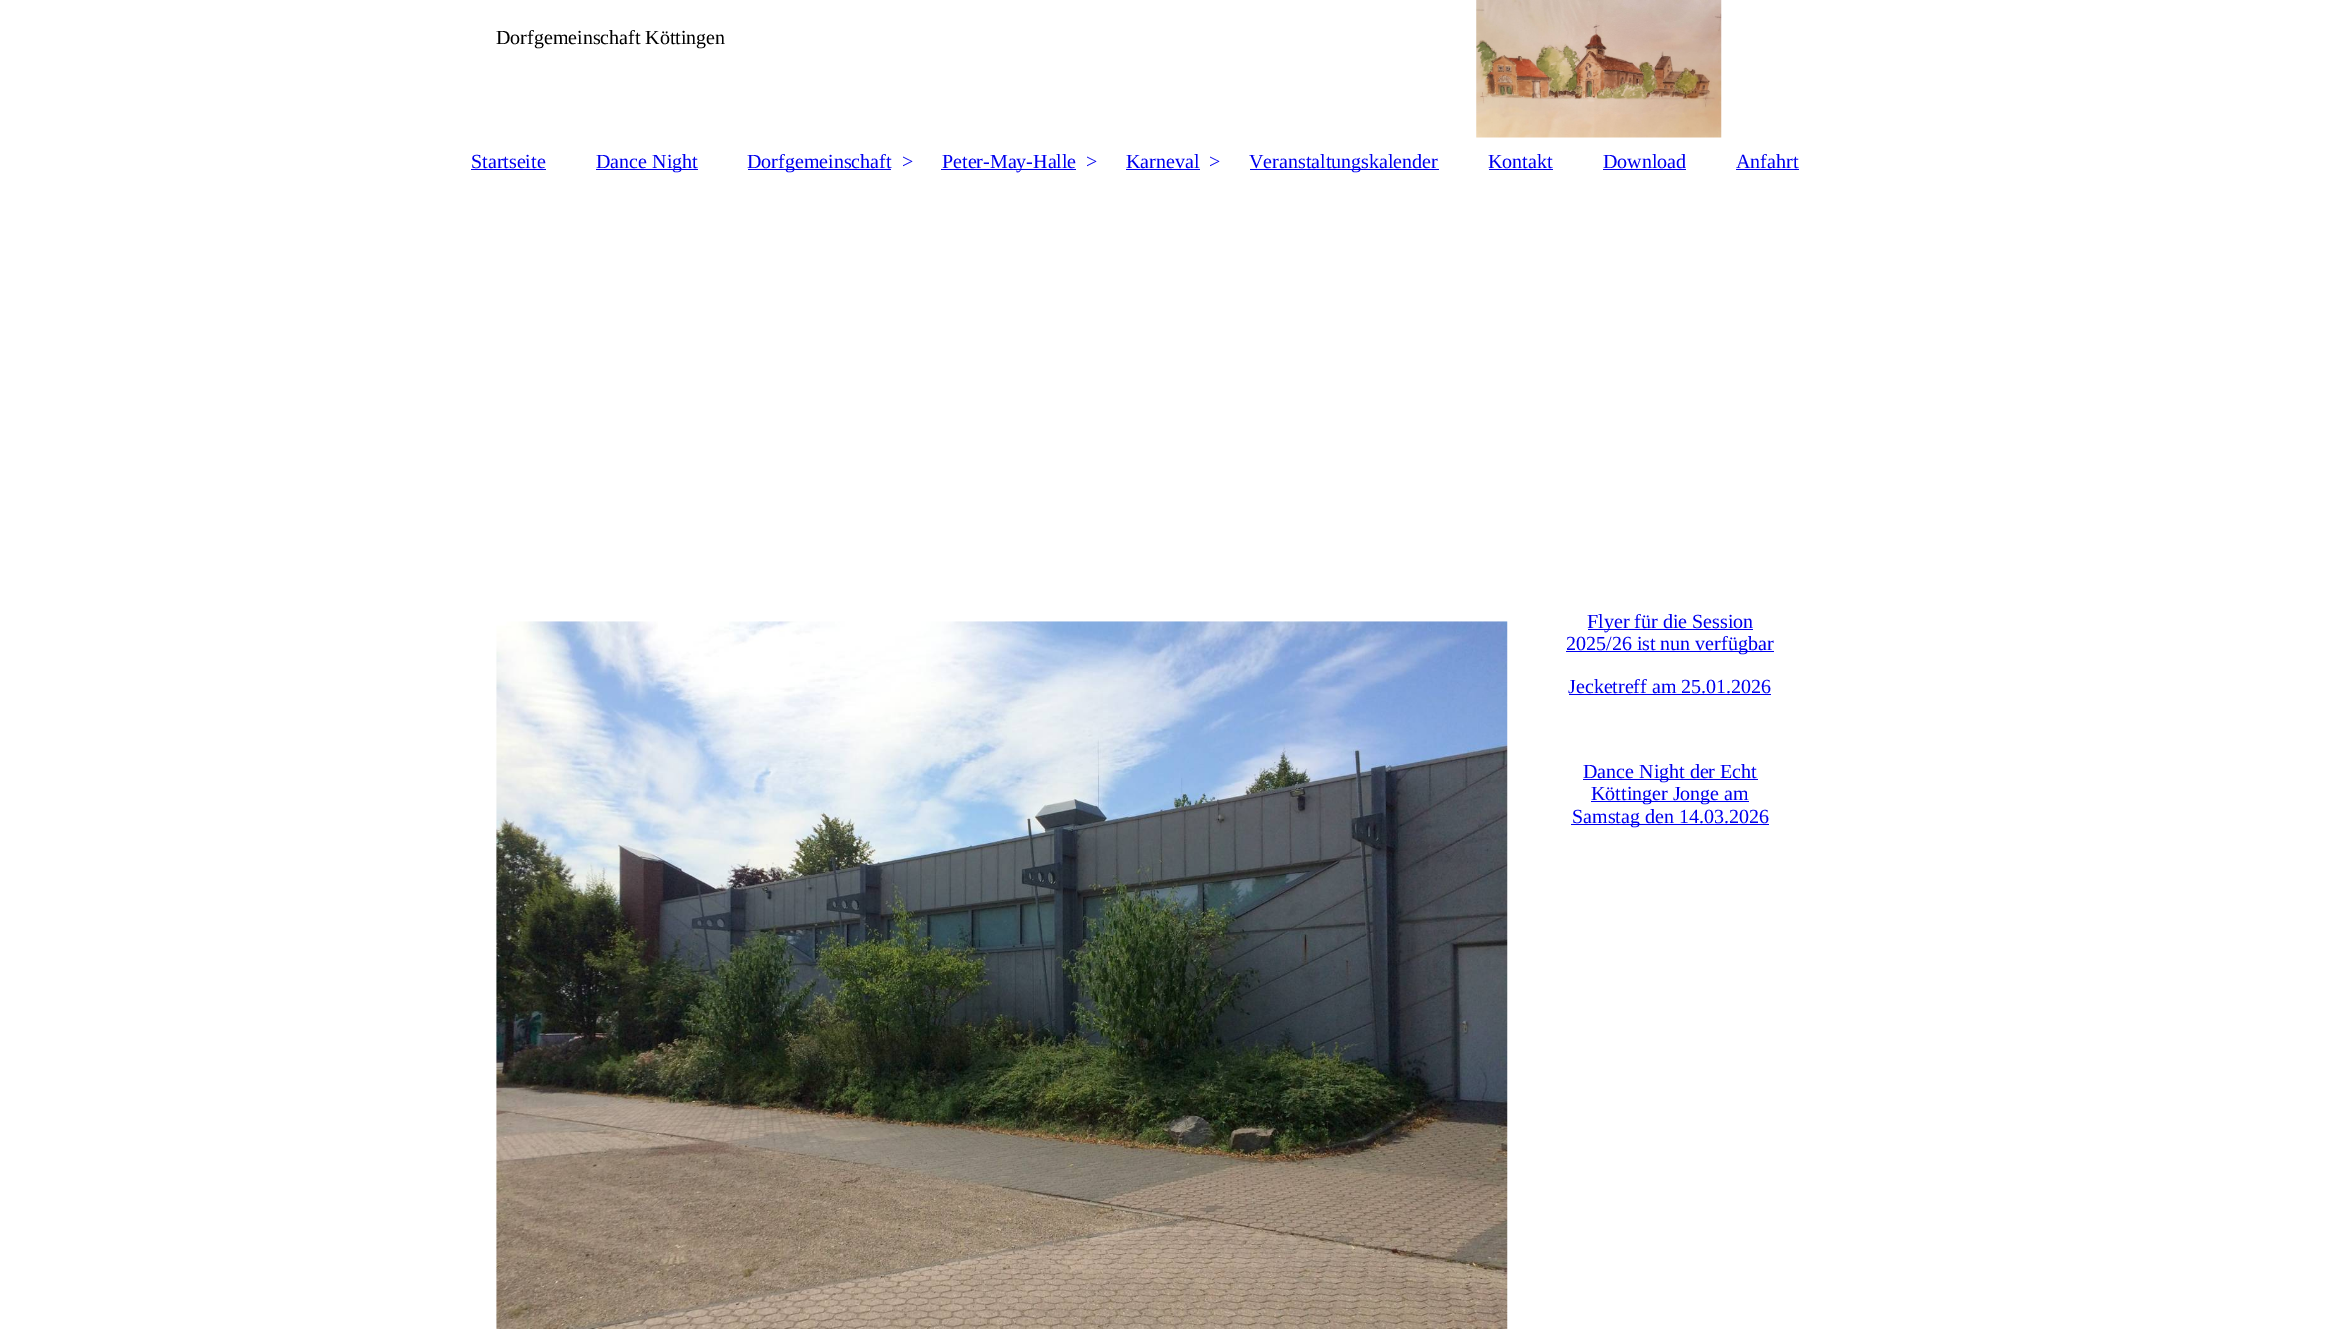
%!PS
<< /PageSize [2329 1329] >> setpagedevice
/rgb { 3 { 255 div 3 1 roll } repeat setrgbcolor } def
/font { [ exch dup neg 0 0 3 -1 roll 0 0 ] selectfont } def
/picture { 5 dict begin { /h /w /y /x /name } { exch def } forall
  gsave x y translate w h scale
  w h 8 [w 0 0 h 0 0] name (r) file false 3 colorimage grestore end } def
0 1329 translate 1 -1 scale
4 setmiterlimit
255 255 255 rgb
0 0 2329 1329 rectfill
(img/1.rgb) 1476 0 246 138 picture
[
  [471 169 75 1 0 0 238]
  [596 169 102 1 0 0 238]
  [748 169 143 1 0 0 238]
  [941 169 135 1 0 0 238]
  [1126 169 74 1 0 0 238]
  [1250 169 189 1 0 0 238]
  [1489 169 64 1 0 0 238]
  [1603 169 83 1 0 0 238]
  [1736 169 63 1 0 0 238]
] { aload pop rgb rectfill } forall
(img/2.rgb) 496 621 1012 708 picture
[
  [1588 629 165 1 0 0 238]
  [1566 651 208 1 0 0 238]
  [1569 694 202 1 0 0 238]
  [1583 779 175 1 0 0 238]
  [1591 801 158 1 0 0 238]
  [1571 824 198 1 0 0 238]
] { aload pop rgb rectfill } forall
/LiberationSerif-Regular 20 font
0 0 0 rgb
496 44 moveto (Dorfgemeinschaft Köttingen) show
0 0 238 rgb
[
  [(Startseite) 471 168]
  [(Dance Night) 596 168]
  [(Dorfgemeinschaft) 747 168]
  [(>) 902 168]
  [(Peter-May-Halle) 942 168]
  [(>) 1086 168]
  [(Karneval) 1126 168]
  [(>) 1209 168]
  [(Veranstaltungskalender) 1249 168]
  [(Kontakt) 1488 168]
  [(Download) 1603 168]
  [(Anfahrt) 1736 168]
  [(Flyer für die Session) 1587 628]
  [(2025/26 ist nun verfügbar) 1566 650]
  [(Jecketreff am 25.01.2026) 1568 693]
  [(Dance Night der Echt) 1583 778]
  [(Köttinger Jonge am) 1591 800]
  [(Samstag den 14.03.2026) 1572 823]
] { aload pop moveto show } forall
showpage
